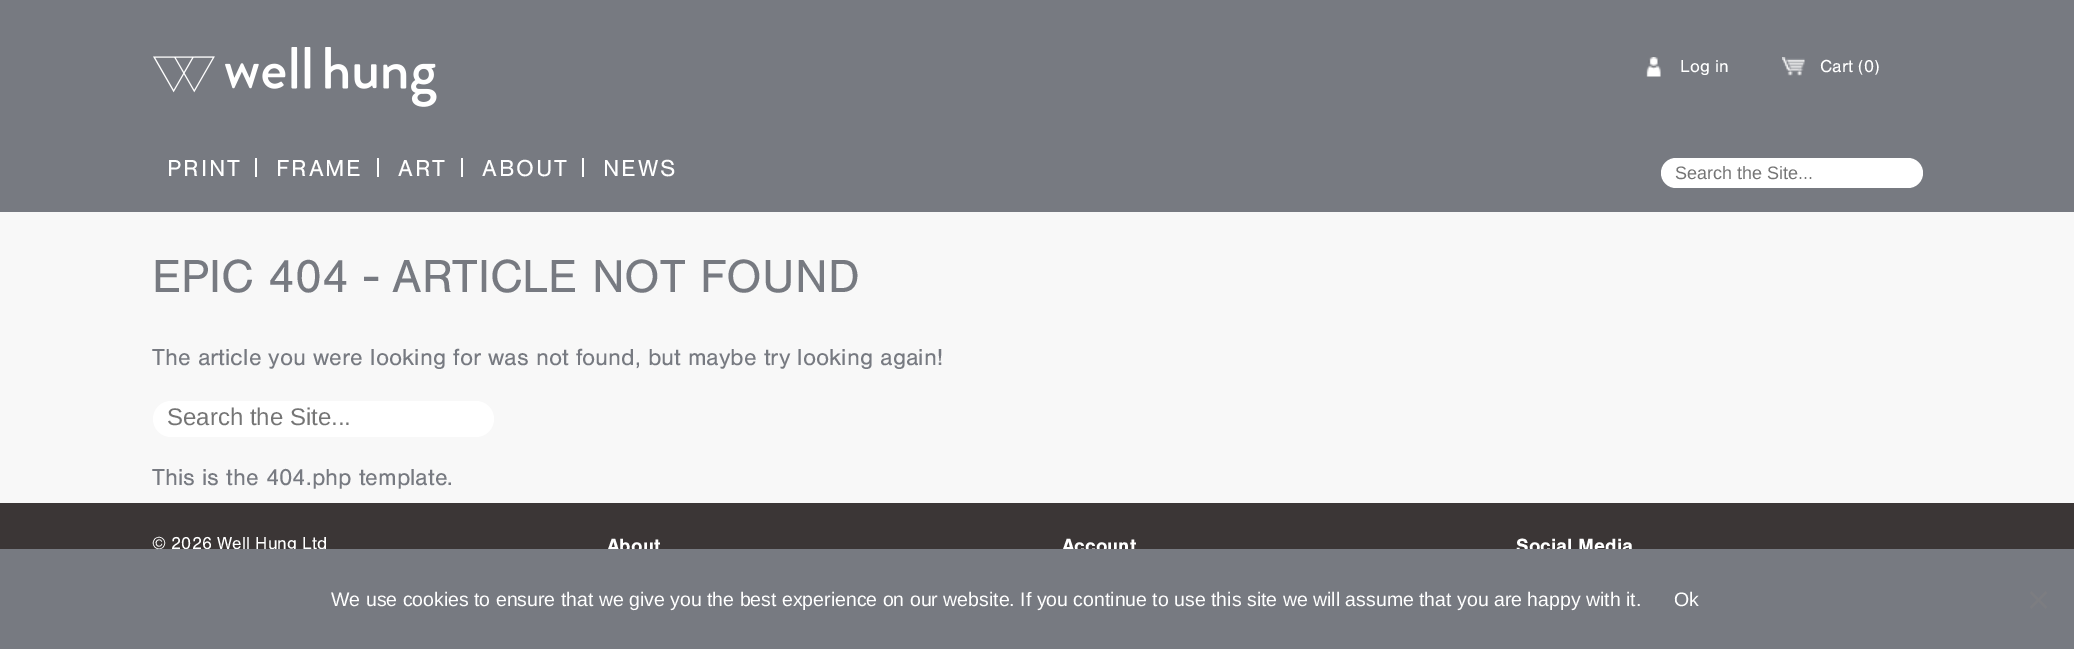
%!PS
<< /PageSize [2074 649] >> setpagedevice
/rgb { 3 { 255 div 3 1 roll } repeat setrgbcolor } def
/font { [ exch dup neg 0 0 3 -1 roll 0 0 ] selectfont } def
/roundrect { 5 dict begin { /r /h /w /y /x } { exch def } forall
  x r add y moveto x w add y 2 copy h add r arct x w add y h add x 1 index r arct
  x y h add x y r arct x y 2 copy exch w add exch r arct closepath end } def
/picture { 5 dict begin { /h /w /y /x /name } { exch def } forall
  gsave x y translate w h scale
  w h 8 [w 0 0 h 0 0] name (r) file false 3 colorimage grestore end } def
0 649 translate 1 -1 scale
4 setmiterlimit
119 122 129 rgb
0 0 2074 649 rectfill
(img/1.rgb) 153 47 284 60 picture
(img/2.rgb) 1646 57 15 20 picture
(img/3.rgb) 1782 57 23 19 picture
[
  [255 158 2 19 255 255 255]
  [377 158 2 19 255 255 255]
  [461 158 2 19 255 255 255]
  [582 158 2 19 255 255 255]
] { aload pop rgb rectfill } forall
1661 158 262 30 15 roundrect fill
248 248 248 rgb
0 212 2074 291 rectfill
255 255 255 rgb
153 401 341 36 18 roundrect fill
59 54 54 rgb
0 503 2074 46 rectfill
124 125 129 rgb
2045.5 591 moveto 2047.5 593 lineto 2031.5 609 lineto 2029.5 607 lineto closepath fill
2029.5 593 moveto 2031.5 591 lineto 2047.5 607 lineto 2045.5 609 lineto closepath fill
/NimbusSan-Regular 18 font
255 255 255 rgb
1680 72 moveto (Log in) show
1820 72 moveto (Cart \(0\)) show
/NimbusSan-Regular 24 font
167 176 moveto 2 0 (PRINT) ashow
276 176 moveto 2 0 (FRAME) ashow
398 176 moveto 2 0 (ART) ashow
482 176 moveto 2 0 (ABOUT) ashow
603 176 moveto 2 0 (NEWS) ashow
/LiberationSans-Regular 18 font
117 117 117 rgb
1675 179 moveto (Search the Site...) show
/NimbusSan-Regular 48 font
119 122 129 rgb
152 292 moveto (EPIC 404 - ARTICLE NOT FOUND) show
/NimbusSan-Regular 24 font
152 365 moveto (The article you were looking for was not found, but maybe try looking again!) show
/LiberationSans-Regular 24 font
117 117 117 rgb
167 425 moveto (Search the Site...) show
/NimbusSan-Regular 24 font
119 122 129 rgb
152 485 moveto (This is the 404.php template.) show
/NimbusSan-Regular 18 font
255 255 255 rgb
152 549 moveto (© 2026 Well Hung Ltd) show
/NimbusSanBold-Bold 19.75 font
[
  [(About) 607 552]
  [(Account) 1062 552]
  [(Social Media) 1516 552]
] { aload pop moveto show } forall
119 122 129 rgb
158 549 1475 4 rectfill
/LiberationSans-Regular 19.5 font
255 255 255 rgb
331 606 moveto (We use cookies to ensure that we give you the best experience on our website. If you continue to use this site we will assume that you are happy with it.) show
1674 606 moveto (Ok) show
showpage
